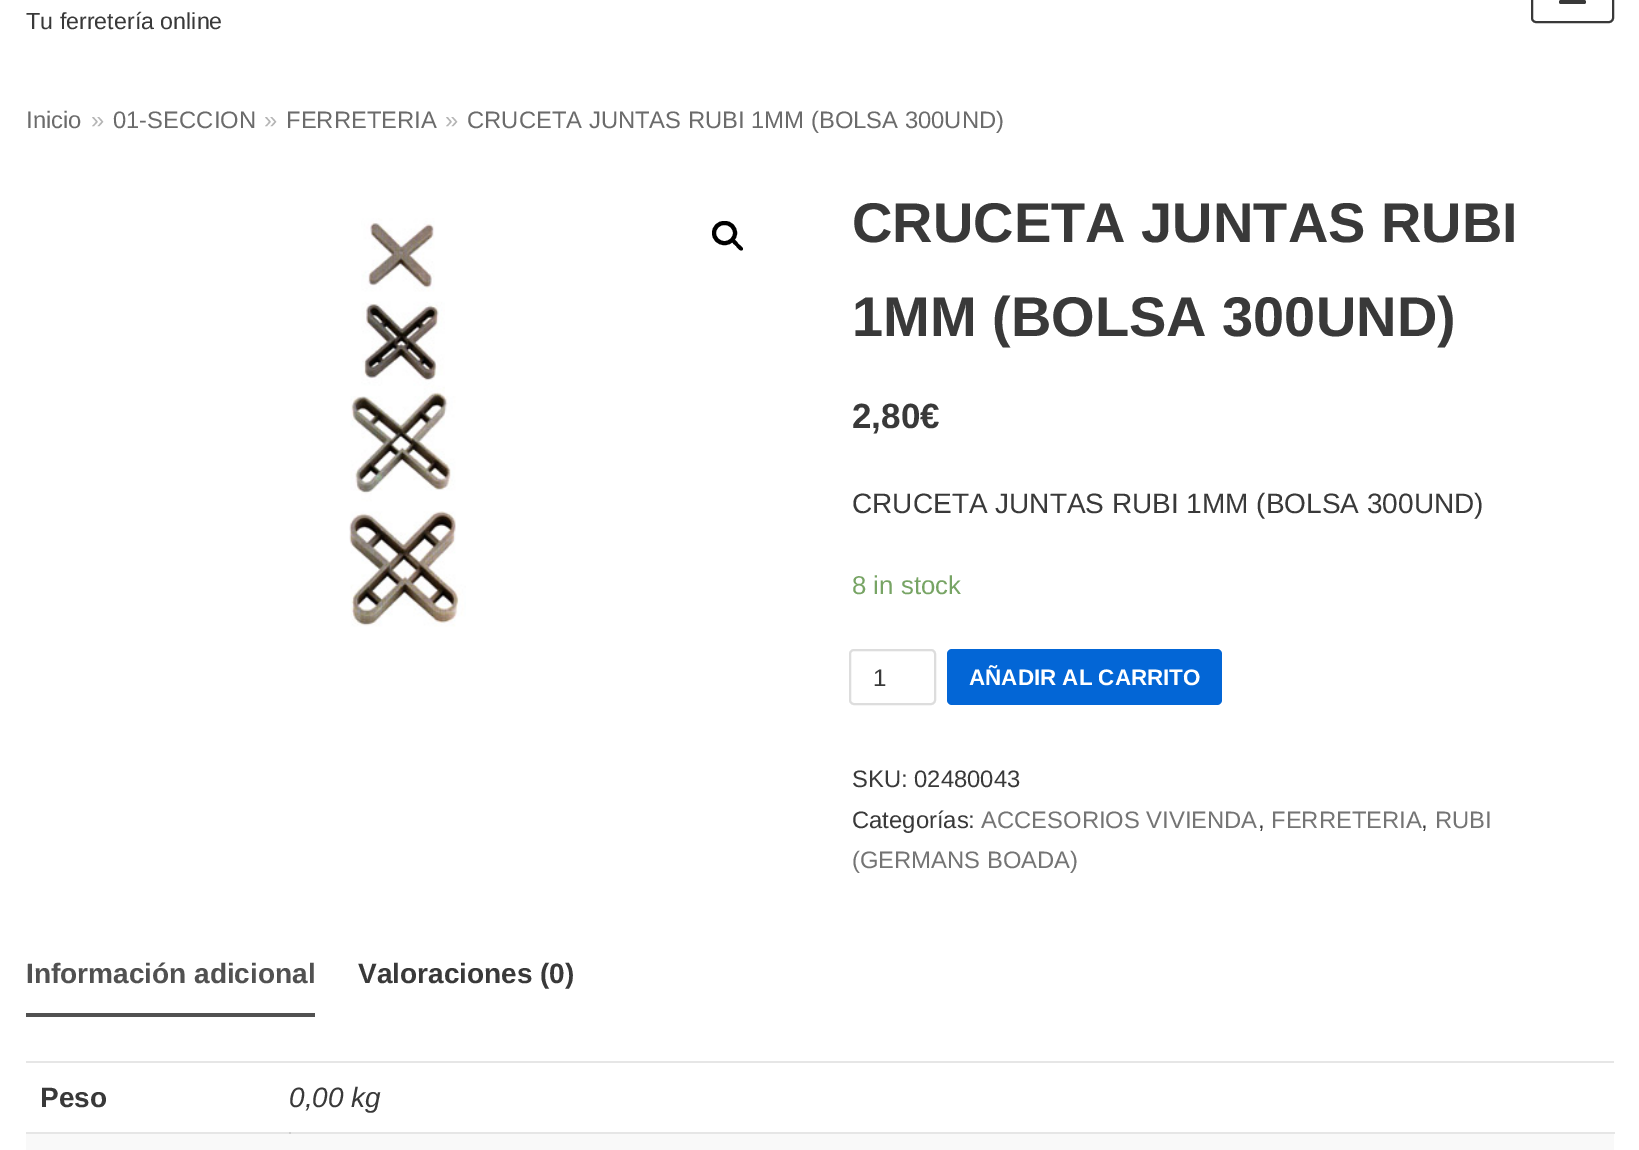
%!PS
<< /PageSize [1639 1150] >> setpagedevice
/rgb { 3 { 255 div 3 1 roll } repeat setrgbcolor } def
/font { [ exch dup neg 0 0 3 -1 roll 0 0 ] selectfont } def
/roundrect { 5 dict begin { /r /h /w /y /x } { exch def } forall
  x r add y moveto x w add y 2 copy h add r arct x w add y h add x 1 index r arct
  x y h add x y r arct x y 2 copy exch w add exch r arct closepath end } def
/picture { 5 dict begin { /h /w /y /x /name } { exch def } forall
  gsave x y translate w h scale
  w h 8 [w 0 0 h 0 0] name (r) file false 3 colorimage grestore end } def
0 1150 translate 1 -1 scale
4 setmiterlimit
255 255 255 rgb
0 0 1639 1150 rectfill
230 230 230 rgb
26 1132 1589 2 rectfill
57 57 57 rgb
2 setlinewidth
1532 -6 81 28 4 roundrect stroke
1559 0 27 4 2 roundrect fill
(img/1.rgb) 349 218 117 409 picture
0 0 0 rgb
4 setlinewidth
714 223 21 20 10 roundrect stroke
732.5 240 moveto 734.5 238 737.5 242.5 738.5 244 curveto 739.5 245 744.5 248 742.5 250 curveto 740.5 252 737 247.5 736 246 curveto 735 245 730.5 242 732.5 240 curveto closepath fill
221 221 221 rgb
2 setlinewidth
850 650 85 54 4 roundrect stroke
3 102 214 rgb
947 649 275 56 5 roundrect fill
[
  [26 1013 289 4 81 81 81]
  [26 1061 1588 2 230 230 230]
  [289 1132 2 2 207 207 207]
  [26 1134 1588 16 249 249 249]
] { aload pop rgb rectfill } forall
/LiberationSans-Regular 23.25 font
57 57 57 rgb
26 29 moveto (Tu ferretería online) show
/LiberationSans-Regular 23.8 font
107 107 107 rgb
26 128 moveto (Inicio) show
181 181 181 rgb
91 128 moveto (») show
107 107 107 rgb
113 128 moveto (01-SECCION) show
181 181 181 rgb
264 128 moveto (») show
107 107 107 rgb
286 128 moveto (FERRETERIA) show
181 181 181 rgb
445 128 moveto (») show
107 107 107 rgb
467 128 moveto (CRUCETA JUNTAS RUBI 1MM \(BOLSA 300UND\)) show
/LiberationSans-Bold 56 font
57 57 57 rgb
852 242 moveto (CRUCETA JUNTAS RUBI) show
852 336 moveto (1MM \(BOLSA 300UND\)) show
/LiberationSans-Bold 35 font
852 428 moveto (2,80€) show
/LiberationSans-Regular 28 font
852 513 moveto (CRUCETA JUNTAS RUBI 1MM \(BOLSA 300UND\)) show
/LiberationSans-Regular 25.75 font
119 164 100 rgb
852 594 moveto (8 in stock) show
/LiberationSans-Regular 24 font
57 57 57 rgb
873 686 moveto (1) show
/LiberationSans-Bold 22.4 font
255 255 255 rgb
969 685 moveto (AÑADIR AL CARRITO) show
/LiberationSans-Regular 23.8 font
57 57 57 rgb
852 787 moveto (SKU: 02480043) show
852 828 moveto (Categorías:) show
116 116 116 rgb
981 828 moveto (ACCESORIOS VIVIENDA) show
57 57 57 rgb
1258 828 moveto (,) show
116 116 116 rgb
1271 828 moveto (FERRETERIA) show
57 57 57 rgb
1421 828 moveto (,) show
116 116 116 rgb
1435 828 moveto (RUBI) show
852 868 moveto (\(GERMANS BOADA\)) show
/LiberationSans-Bold 28 font
81 81 81 rgb
26 983 moveto (Información adicional) show
57 57 57 rgb
358 983 moveto (Valoraciones \(0\)) show
40 1107 moveto (Peso) show
/LiberationSans-Italic 28 font
289 1107 moveto (0,00 kg) show
showpage
